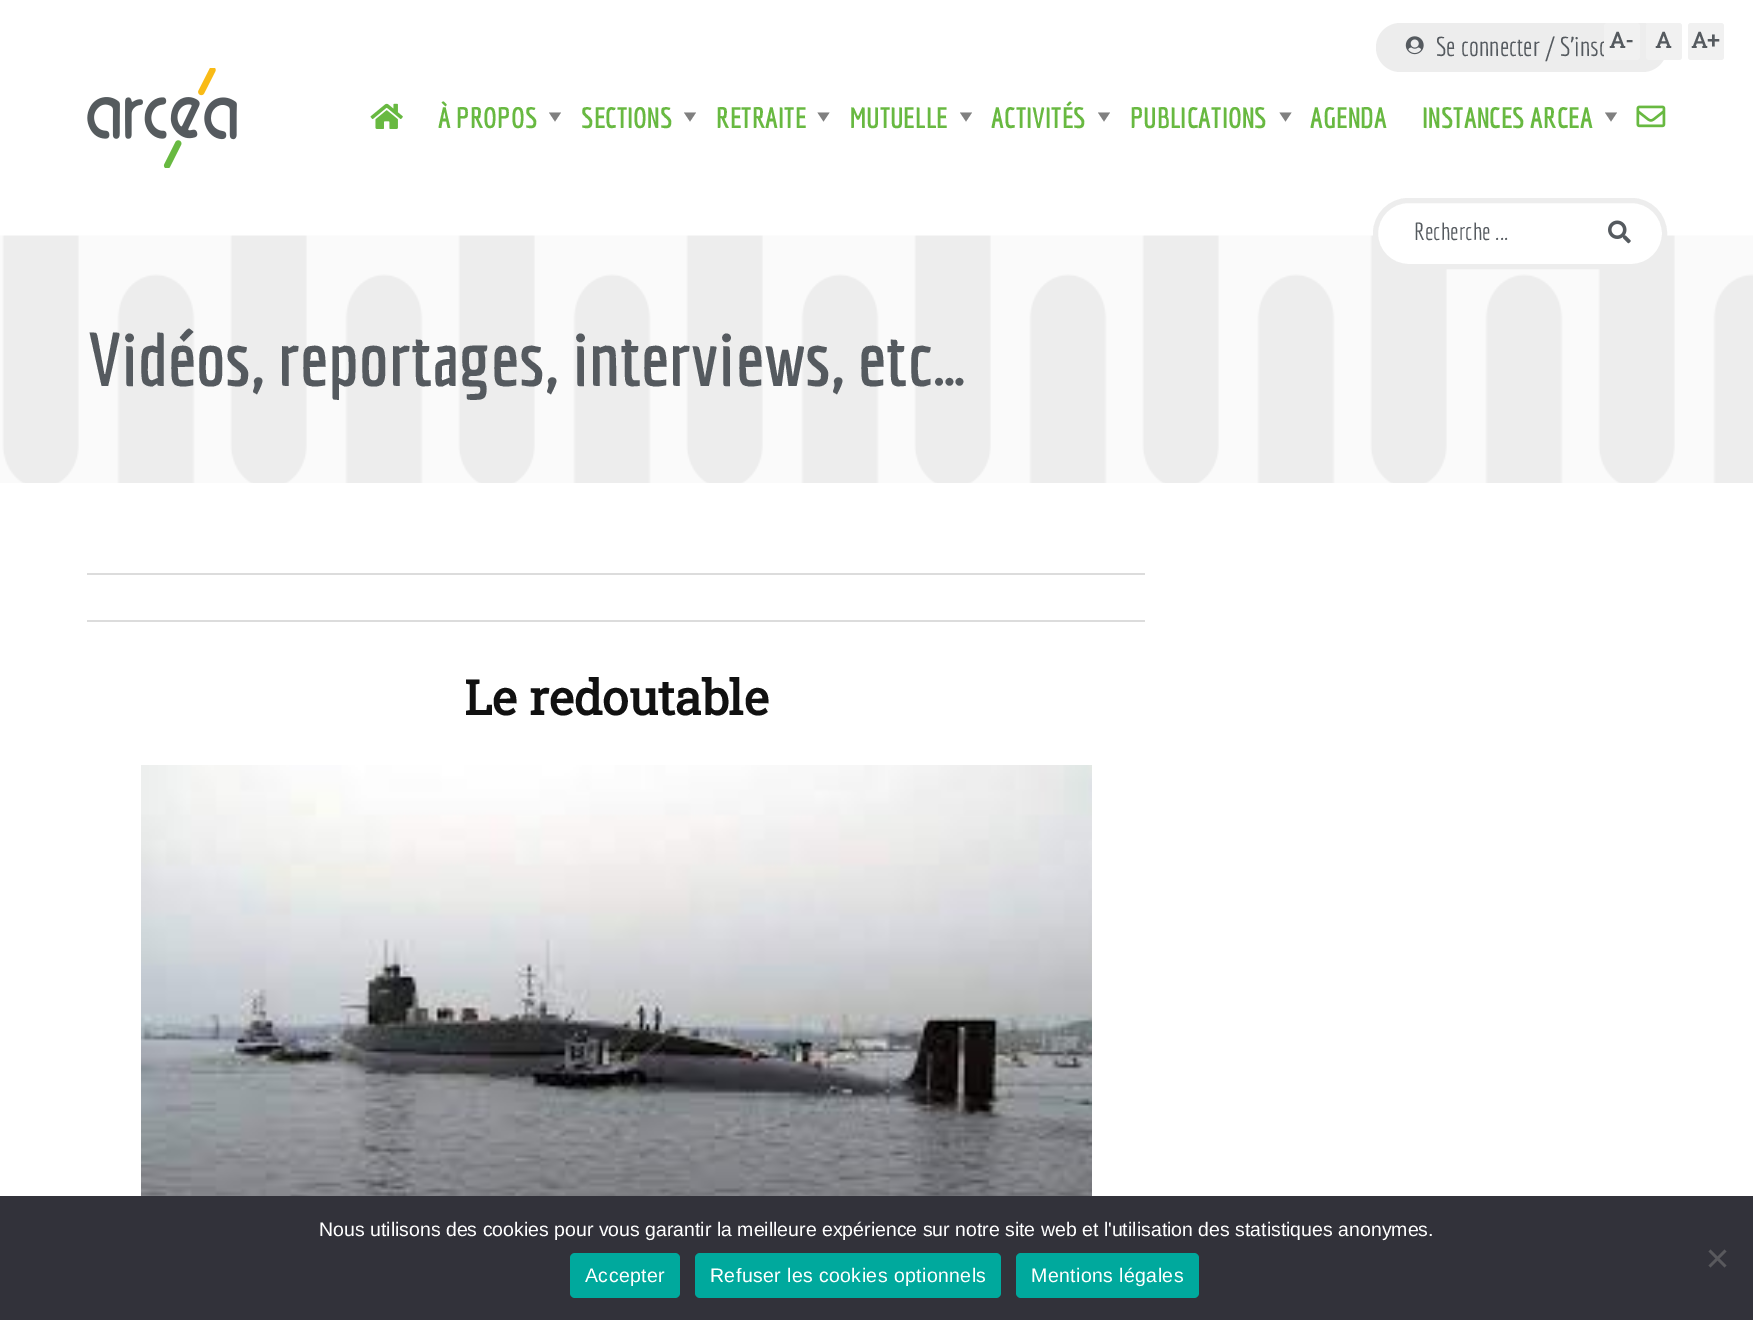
%!PS
<< /PageSize [1753 1320] >> setpagedevice
/rgb { 3 { 255 div 3 1 roll } repeat setrgbcolor } def
/font { [ exch dup neg 0 0 3 -1 roll 0 0 ] selectfont } def
/roundrect { 5 dict begin { /r /h /w /y /x } { exch def } forall
  x r add y moveto x w add y 2 copy h add r arct x w add y h add x 1 index r arct
  x y h add x y r arct x y 2 copy exch w add exch r arct closepath end } def
/picture { 5 dict begin { /h /w /y /x /name } { exch def } forall
  gsave x y translate w h scale
  w h 8 [w 0 0 h 0 0] name (r) file false 3 colorimage grestore end } def
0 1320 translate 1 -1 scale
4 setmiterlimit
255 255 255 rgb
0 0 1753 1320 rectfill
(img/1.rgb) 87 68 150 100 picture
237 237 237 rgb
1376 23 291 49 24.5 roundrect fill
(img/2.rgb) 1405 36 19 19 picture
(img/3.rgb) 370 103 33 26 picture
128 128 128 rgb
549 112.5 moveto 561 112.5 lineto 555 121.5 lineto closepath fill
684 112.5 moveto 696 112.5 lineto 690 121.5 lineto closepath fill
817.5 112.5 moveto 829.5 112.5 lineto 823.5 121.5 lineto closepath fill
960 112.5 moveto 972 112.5 lineto 966 121.5 lineto closepath fill
1098 112.5 moveto 1110 112.5 lineto 1104 121.5 lineto closepath fill
1279.5 112.5 moveto 1291.5 112.5 lineto 1285.5 121.5 lineto closepath fill
1605 112.5 moveto 1617 112.5 lineto 1611 121.5 lineto closepath fill
(img/4.rgb) 1636 105 30 23 picture
(img/6.rgb) 0 235 1753 248 picture
255 255 255 rgb
1375.5 200.5 289 66 33 roundrect gsave fill grestore
237 237 237 rgb
5 setlinewidth
stroke
(img/5.rgb) 1608 220 23 24 picture
241 241 241 rgb
1646 23 36 37 3 roundrect fill
1688 23 36 37 3 roundrect fill
220 220 220 rgb
87 573 1058 2 rectfill
87 620 1058 2 rectfill
(img/7.rgb) 141 765 951 431 picture
50 50 58 rgb
0 1196 1753 124 rectfill
89 89 93 rgb
1724.5 1249.5 moveto 1726.5 1251.5 lineto 1710.5 1267.5 lineto 1708.5 1265.5 lineto closepath fill
1708.5 1251.5 moveto 1710.5 1249.5 lineto 1726.5 1265.5 lineto 1724.5 1267.5 lineto closepath fill
0 169 157 rgb
570 1253 110 45 5 roundrect fill
695 1253 306 45 5 roundrect fill
1016 1253 183 45 5 roundrect fill
/Economica-Regular 26.5 font
85 90 95 rgb
1436 56 moveto (Se connecter / S'insc) show
/Economica-Bold 28.75 font
104 185 65 rgb
[
  [(À PROPOS) 438 128]
  [(SECTIONS) 581 128]
  [(RETRAITE) 716 128]
  [(MUTUELLE) 850 128]
  [(ACTIVITÉS) 991 128]
  [(PUBLICATIONS) 1130 128]
  [(AGENDA) 1310 128]
  [(INSTANCES ARCEA) 1422 128]
] { aload pop moveto show } forall
/Economica-Regular 24 font
85 90 95 rgb
1414 240 moveto (Recherche ...) show
241 241 241 rgb
1604 23 36 37 3 roundrect fill
/RobotoSlab-Bold 22 font
85 90 95 rgb
[
  [(A-) 1609 48]
  [(A) 1655 48]
  [(A+) 1691 48]
] { aload pop moveto show } forall
/Economica-Bold 74.4 font
88 386 moveto (Vidéos, reportages, interviews, etc…) show
/RobotoSlab-Bold 48 font
17 17 17 rgb
464 715 moveto (Le redoutable) show
/LiberationSans-Regular 19.5 font
255 255 255 rgb
319 1236 moveto (Nous utilisons des cookies pour vous garantir la meilleure expérience sur notre site web et l'utilisation des statistiques anonymes.) show
585 1282 moveto 0.4 0 (Accepter) ashow
710 1282 moveto 0.4 0 (Refuser les cookies optionnels) ashow
1031 1282 moveto 0.4 0 (Mentions légales) ashow
showpage
